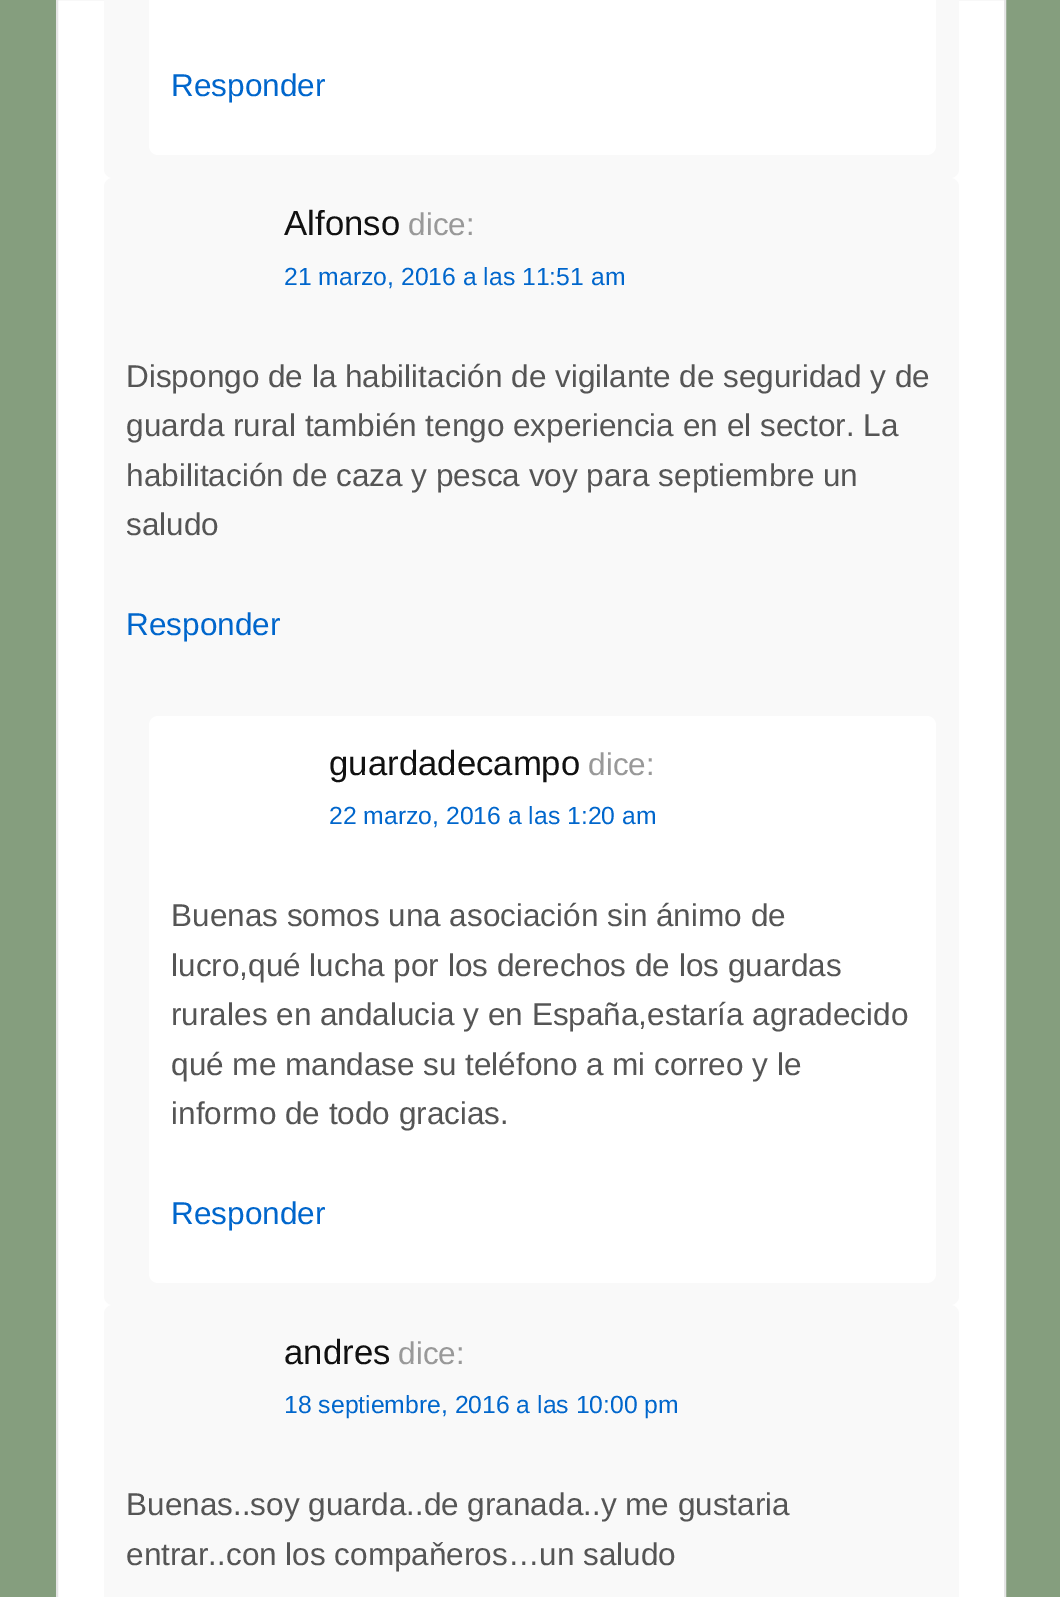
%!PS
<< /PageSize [1060 1597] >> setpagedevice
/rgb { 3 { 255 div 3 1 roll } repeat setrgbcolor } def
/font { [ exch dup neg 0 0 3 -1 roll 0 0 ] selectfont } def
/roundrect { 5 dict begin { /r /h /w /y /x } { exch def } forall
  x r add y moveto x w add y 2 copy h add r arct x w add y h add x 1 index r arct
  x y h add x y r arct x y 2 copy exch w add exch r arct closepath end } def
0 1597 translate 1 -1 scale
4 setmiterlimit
133 158 126 rgb
0 0 1060 1597 rectfill
255 255 255 rgb
57 -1 moveto 1005 -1 lineto 1005 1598 lineto 57 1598 lineto closepath gsave fill grestore
229 229 229 rgb
2 setlinewidth
stroke
249 249 249 rgb
104 -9 855 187 9 roundrect fill
255 255 255 rgb
149 -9 787 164 9 roundrect fill
249 249 249 rgb
104 178 855 1127 9 roundrect fill
255 255 255 rgb
149 716 787 567 9 roundrect fill
249 249 249 rgb
104 1305 855 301 9 roundrect fill
/LiberationSans-Regular 31.5 font
0 102 204 rgb
171 96 moveto (Responder) show
/LiberationSans-Regular 34.75 font
17 17 17 rgb
284 235 moveto (Alfonso) show
/LiberationSans-Regular 31.5 font
153 153 153 rgb
408 235 moveto (dice:) show
/LiberationSans-Regular 24.75 font
0 102 204 rgb
284 285 moveto (21 marzo, 2016 a las 11:51 am) show
/LiberationSans-Regular 31.5 font
85 85 85 rgb
[
  [(Dispongo de la habilitación de vigilante de seguridad y de) 126 387]
  [(guarda rural también tengo experiencia en el sector. La) 126 436]
  [(habilitación de caza y pesca voy para septiembre un) 126 486]
  [(saludo) 126 535]
] { aload pop moveto show } forall
0 102 204 rgb
126 635 moveto (Responder) show
/LiberationSans-Regular 34.75 font
17 17 17 rgb
329 775 moveto (guardadecampo) show
/LiberationSans-Regular 31.5 font
153 153 153 rgb
588 775 moveto (dice:) show
/LiberationSans-Regular 24.75 font
0 102 204 rgb
329 824 moveto (22 marzo, 2016 a las 1:20 am) show
/LiberationSans-Regular 31.5 font
85 85 85 rgb
[
  [(Buenas somos una asociación sin ánimo de) 171 926]
  [(lucro,qué lucha por los derechos de los guardas) 171 976]
  [(rurales en andalucia y en España,estaría agradecido) 171 1025]
  [(qué me mandase su teléfono a mi correo y le) 171 1075]
  [(informo de todo gracias.) 171 1124]
] { aload pop moveto show } forall
0 102 204 rgb
171 1224 moveto (Responder) show
/LiberationSans-Regular 34.75 font
17 17 17 rgb
284 1364 moveto (andres) show
/LiberationSans-Regular 31.5 font
153 153 153 rgb
398 1364 moveto (dice:) show
/LiberationSans-Regular 24.75 font
0 102 204 rgb
284 1413 moveto (18 septiembre, 2016 a las 10:00 pm) show
/LiberationSans-Regular 31.5 font
85 85 85 rgb
126 1515 moveto (Buenas..soy guarda..de granada..y me gustaria) show
126 1565 moveto (entrar..con los compaňeros…un saludo) show
showpage
